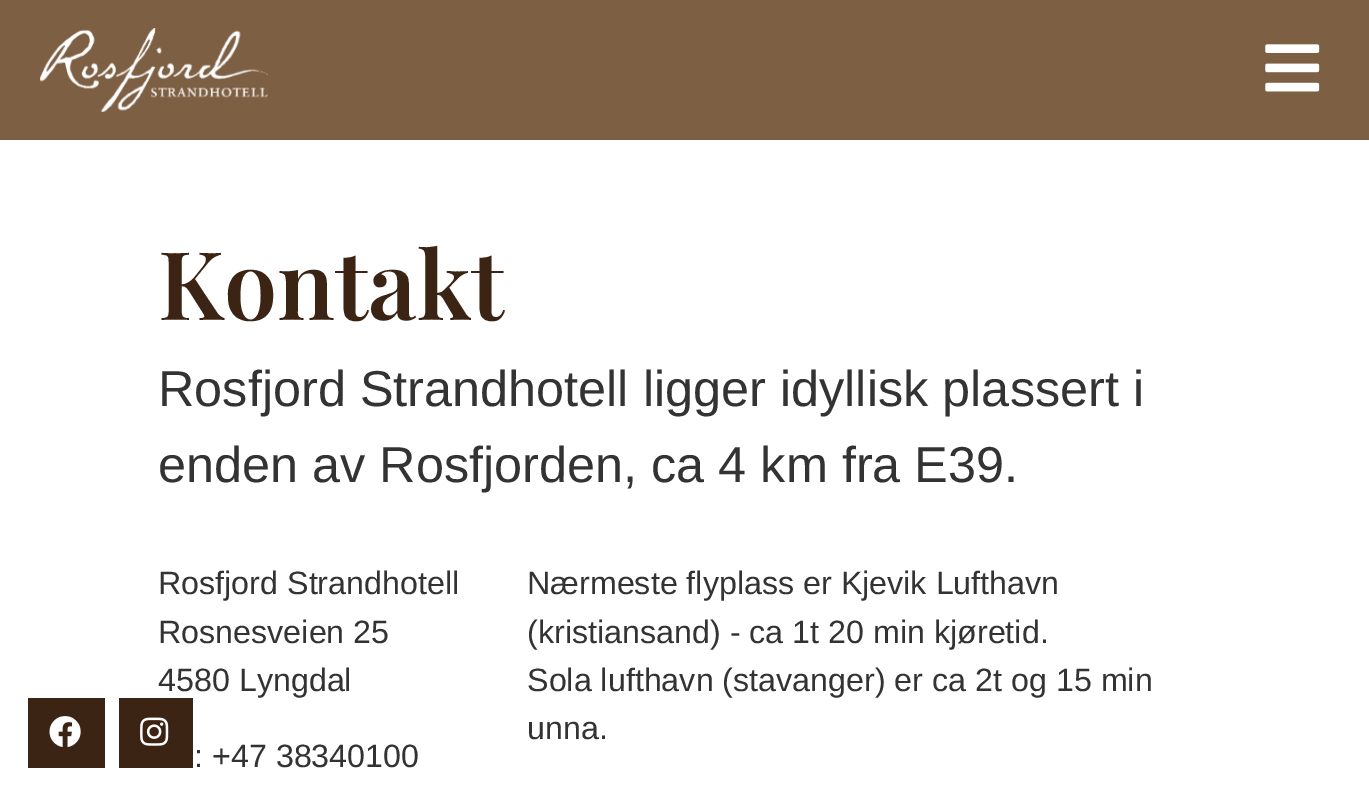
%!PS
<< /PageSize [1369 796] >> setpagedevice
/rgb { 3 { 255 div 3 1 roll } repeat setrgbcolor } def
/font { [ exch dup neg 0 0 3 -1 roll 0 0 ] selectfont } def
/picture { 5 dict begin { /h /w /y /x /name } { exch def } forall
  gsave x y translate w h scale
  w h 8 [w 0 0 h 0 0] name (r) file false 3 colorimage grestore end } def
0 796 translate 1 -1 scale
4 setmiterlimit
255 255 255 rgb
0 0 1369 796 rectfill
125 95 68 rgb
0 0 1369 140 rectfill
(img/1.rgb) 40 28 228 84 picture
(img/2.rgb) 1265 44 55 48 picture
60 36 21 rgb
28 698 77 70 rectfill
(img/3.rgb) 49 716 32 31 picture
119 698 74 70 rectfill
(img/4.rgb) 140 717 29 29 picture
/PlayfairDisplay-SemiBold 95 font
158 320 moveto (Kontakt) show
/LiberationSans-Regular 50.4 font
51 51 51 rgb
158 406 moveto (Rosfjord Strandhotell ligger idyllisk plassert i) show
158 482 moveto (enden av Rosfjorden, ca 4 km fra E39.) show
/LiberationSans-Regular 32.25 font
[
  [(Rosfjord Strandhotell) 158 594]
  [(Rosnesveien 25) 158 643]
  [(4580 Lyngdal) 158 691]
  [(: +47 38340100) 194 767]
  [(Nærmeste flyplass er Kjevik Lufthavn) 527 594]
  [(\(kristiansand\) - ca 1t 20 min kjøretid.) 527 643]
  [(Sola lufthavn \(stavanger\) er ca 2t og 15 min) 527 691]
  [(unna.) 527 739]
] { aload pop moveto show } forall
showpage
